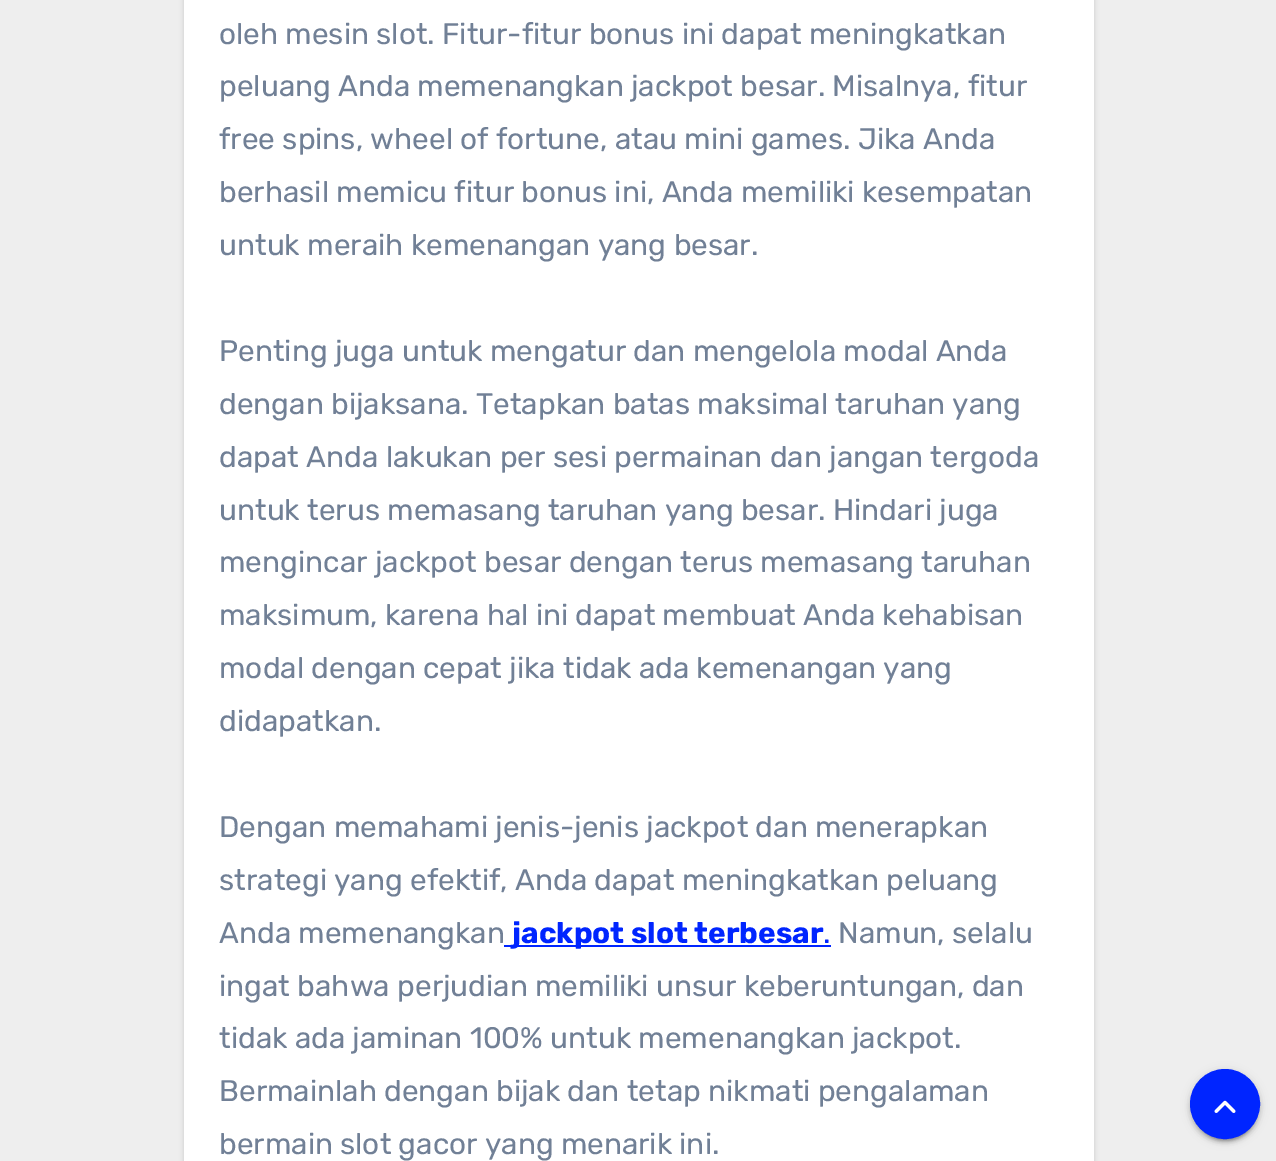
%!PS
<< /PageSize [1276 1161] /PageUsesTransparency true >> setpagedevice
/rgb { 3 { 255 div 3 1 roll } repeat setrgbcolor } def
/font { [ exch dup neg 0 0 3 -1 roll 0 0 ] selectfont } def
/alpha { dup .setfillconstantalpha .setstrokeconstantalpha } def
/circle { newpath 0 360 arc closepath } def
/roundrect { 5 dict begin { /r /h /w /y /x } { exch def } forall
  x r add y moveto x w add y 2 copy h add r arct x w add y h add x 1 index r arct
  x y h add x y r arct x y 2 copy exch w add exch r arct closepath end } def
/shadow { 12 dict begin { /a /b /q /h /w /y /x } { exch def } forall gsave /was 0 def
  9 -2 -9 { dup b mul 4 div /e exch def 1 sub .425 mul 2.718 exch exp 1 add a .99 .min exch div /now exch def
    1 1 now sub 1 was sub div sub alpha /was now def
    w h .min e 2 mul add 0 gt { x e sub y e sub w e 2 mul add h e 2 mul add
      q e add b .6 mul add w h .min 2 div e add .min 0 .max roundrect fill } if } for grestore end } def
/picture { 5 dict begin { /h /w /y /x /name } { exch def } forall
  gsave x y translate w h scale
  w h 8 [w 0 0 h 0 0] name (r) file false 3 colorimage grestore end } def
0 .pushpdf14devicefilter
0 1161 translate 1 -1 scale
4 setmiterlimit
238 238 238 rgb
0 0 1276 1161 rectfill
0 0 0 rgb
184 -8 910 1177 0 2.5 0.15 shadow
255 255 255 rgb
184 0 910 1161 rectfill
0 37 255 rgb
504 945 327 2 rectfill
0 0 0 rgb
1190 1071 70 70 35 4.5 0.12 shadow
1194 1078 63 63 31.5 1 0.2 shadow
1190 1073 70 70 35 2 0.14 shadow
0 37 255 rgb
1225 1104 33 circle gsave fill grestore
4 setlinewidth
stroke
(img/1.rgb) 1214 1100 22 13 picture
/Rubik-Light 29.75 font
113 128 150 rgb
[
  [(oleh mesin slot. Fitur-fitur bonus ini dapat meningkatkan) 219 44]
  [(peluang Anda memenangkan jackpot besar. Misalnya, fitur) 219 96]
  [(free spins, wheel of fortune, atau mini games. Jika Anda) 219 149]
  [(berhasil memicu fitur bonus ini, Anda memiliki kesempatan) 219 202]
  [(untuk meraih kemenangan yang besar.) 219 255]
  [(Penting juga untuk mengatur dan mengelola modal Anda) 219 361]
  [(dengan bijaksana. Tetapkan batas maksimal taruhan yang) 219 414]
  [(dapat Anda lakukan per sesi permainan dan jangan tergoda) 219 467]
  [(untuk terus memasang taruhan yang besar. Hindari juga) 219 520]
  [(mengincar jackpot besar dengan terus memasang taruhan) 219 572]
  [(maksimum, karena hal ini dapat membuat Anda kehabisan) 219 625]
  [(modal dengan cepat jika tidak ada kemenangan yang) 219 678]
  [(didapatkan.) 219 731]
  [(Dengan memahami jenis-jenis jackpot dan menerapkan) 219 837]
  [(strategi yang efektif, Anda dapat meningkatkan peluang) 219 890]
  [(Anda memenangkan) 219 943]
] { aload pop moveto show } forall
/Rubik-Bold 29.75 font
0 37 255 rgb
512 943 moveto (jackpot slot terbesar) show
/Rubik-Light 29.75 font
823 943 moveto (.) show
113 128 150 rgb
[
  [(Namun, selalu) 838 943]
  [(ingat bahwa perjudian memiliki unsur keberuntungan, dan) 219 996]
  [(tidak ada jaminan 100% untuk memenangkan jackpot.) 219 1048]
  [(Bermainlah dengan bijak dan tetap nikmati pengalaman) 219 1101]
  [(bermain slot gacor yang menarik ini.) 219 1154]
] { aload pop moveto show } forall
.poppdf14devicefilter showpage
